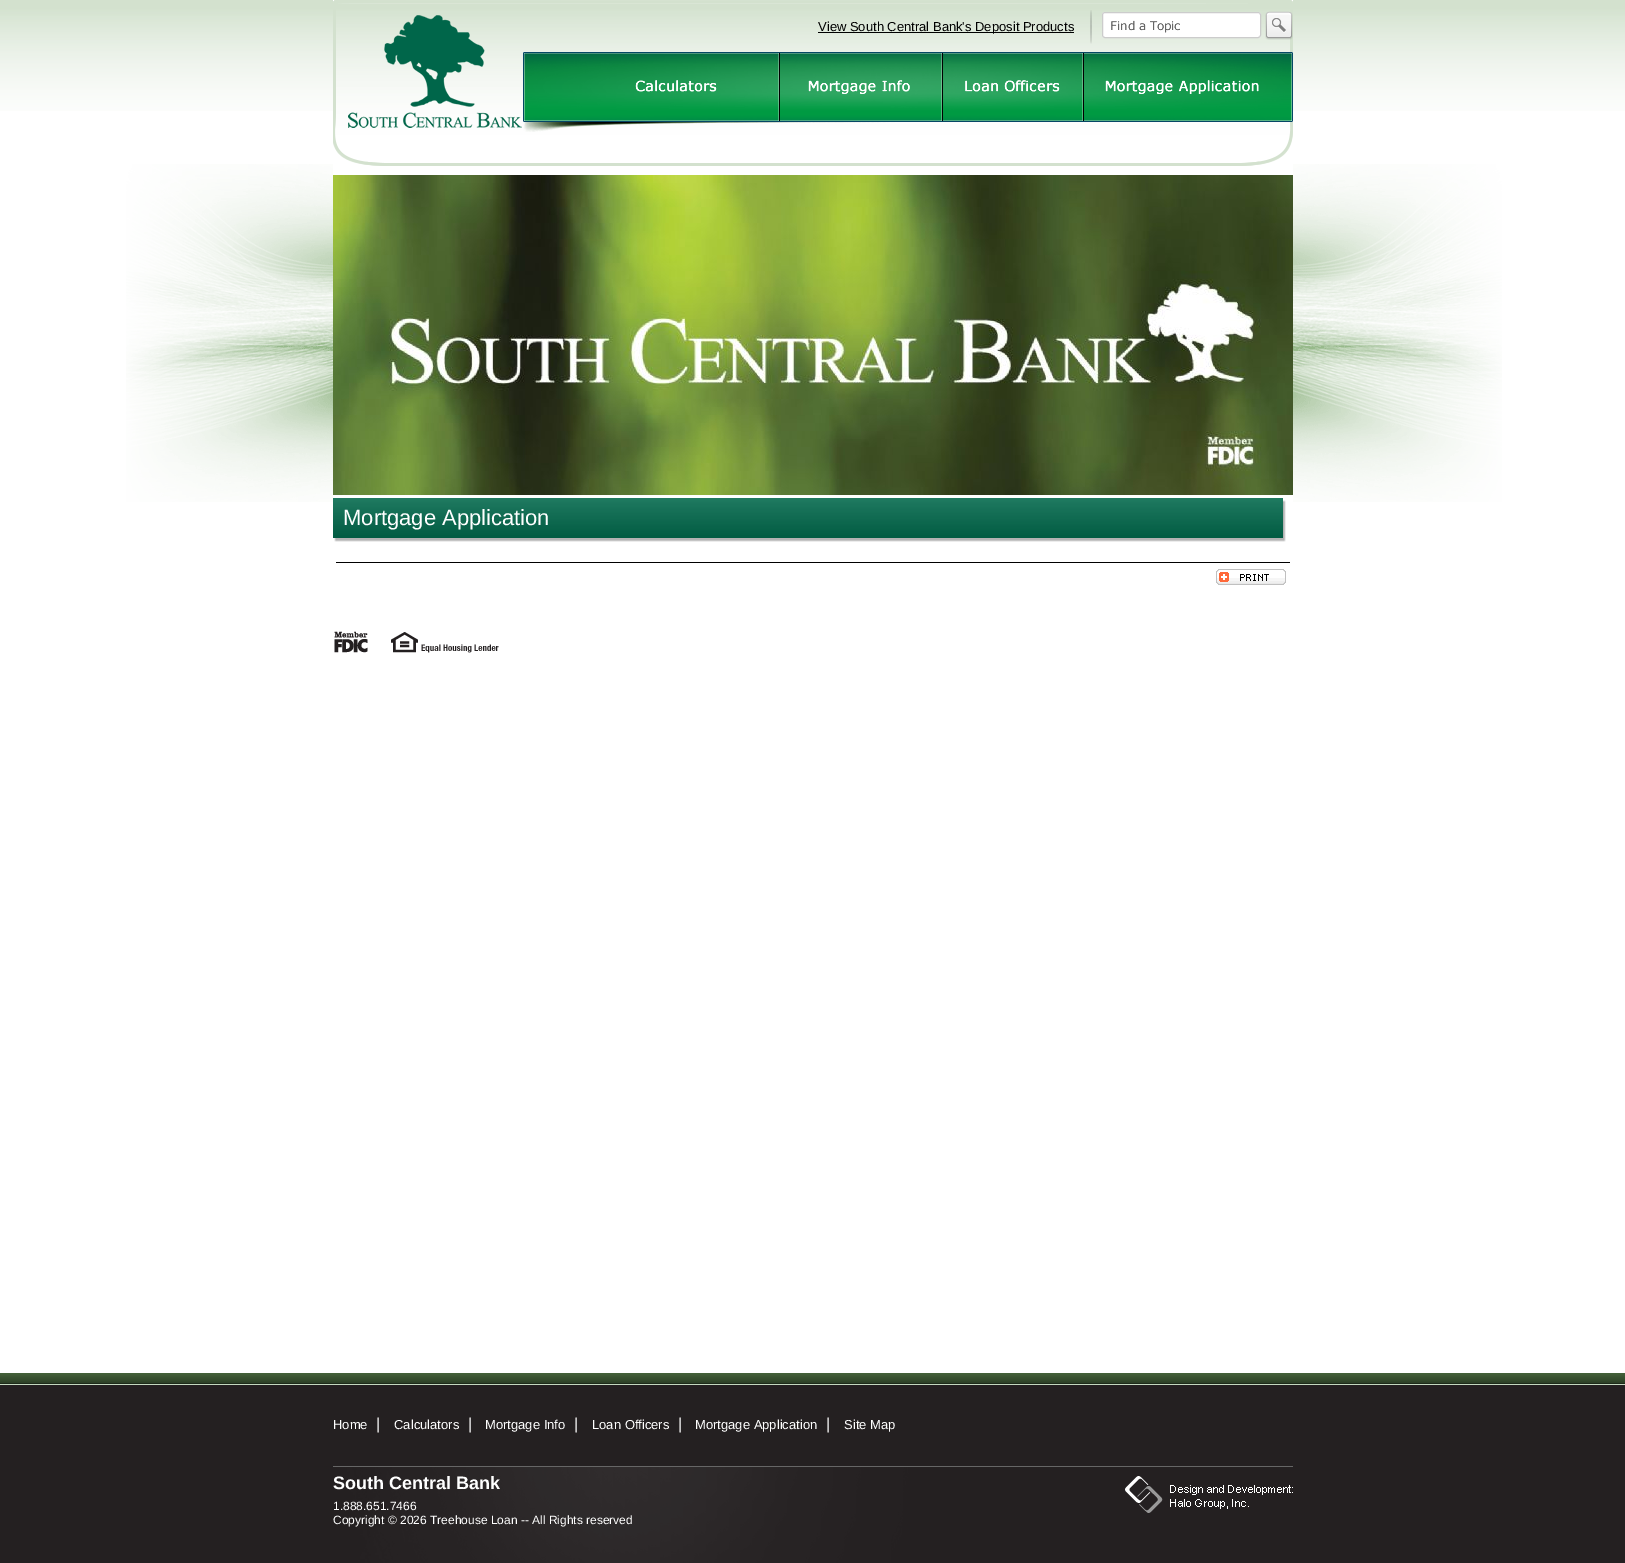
%!PS
<< /PageSize [1625 1563] >> setpagedevice
/rgb { 3 { 255 div 3 1 roll } repeat setrgbcolor } def
/font { [ exch dup neg 0 0 3 -1 roll 0 0 ] selectfont } def
/roundrect { 5 dict begin { /r /h /w /y /x } { exch def } forall
  x r add y moveto x w add y 2 copy h add r arct x w add y h add x 1 index r arct
  x y h add x y r arct x y 2 copy exch w add exch r arct closepath end } def
/picture { 5 dict begin { /h /w /y /x /name } { exch def } forall
  gsave x y translate w h scale
  w h 8 [w 0 0 h 0 0] name (r) file false 3 colorimage grestore end } def
0 1563 translate 1 -1 scale
4 setmiterlimit
255 255 255 rgb
0 0 1625 1563 rectfill
(img/1.rgb) 126 164 1376 338 picture
(img/2.rgb) 0 0 1625 111 picture
333 0 960 502 rectfill
(img/3.rgb) 333 0 960 166 picture
0 0 0 rgb
818 32 256 1 rectfill
(img/4.rgb) 1090 10 2 34 picture
255 255 255 rgb
1102 12 159 26 3 roundrect fill
(img/5.rgb) 1111 13 150 24 picture
204 204 204 rgb
1102.5 12.5 158 25 2.5 roundrect stroke
(img/6.rgb) 1265 11 28 29 picture
(img/7.rgb) 523 52 256 70 picture
(img/8.rgb) 779 52 163 70 picture
(img/9.rgb) 942 52 141 70 picture
(img/10.rgb) 1083 52 210 70 picture
(img/11.rgb) 333 175 960 320 picture
0 103 74 rgb
333 498 950 40 rectfill
(img/12.rgb) 333 495 955 48 picture
0 0 0 rgb
336 562 954 1 rectfill
(img/13.rgb) 1216 569 70 16 picture
(img/14.rgb) 334 631 165 22 picture
36 32 33 rgb
0 1385 1625 178 rectfill
(img/15.rgb) 0 1373 1625 12 picture
(img/16.rgb) 333 1466 960 97 picture
(img/17.rgb) 1125 1476 168 37 picture
/LiberationSans-Regular 13 font
0 0 0 rgb
818 31 moveto (View South Central Bank's Deposit Products) show
/LiberationSans-Regular 22 font
255 255 255 rgb
343 525 moveto (Mortgage Application) show
/LiberationSans-Regular 13 font
333 1429 moveto (Home) show
/LiberationSans-Regular 16 font
376 1429 moveto (|) show
/LiberationSans-Regular 13 font
394 1429 moveto (Calculators) show
/LiberationSans-Regular 16 font
468 1429 moveto (|) show
/LiberationSans-Regular 13 font
485 1429 moveto (Mortgage Info) show
/LiberationSans-Regular 16 font
574 1429 moveto (|) show
/LiberationSans-Regular 13 font
592 1429 moveto (Loan Officers) show
/LiberationSans-Regular 16 font
678 1429 moveto (|) show
/LiberationSans-Regular 13 font
695 1429 moveto (Mortgage Application) show
/LiberationSans-Regular 16 font
826 1429 moveto (|) show
/LiberationSans-Regular 13 font
844 1429 moveto (Site Map) show
/LiberationSans-Bold 18 font
333 1489 moveto (South Central Bank) show
/LiberationSans-Regular 12 font
333 1510 moveto (1.888.651.7466) show
333 1524 moveto (Copyright © 2026 Treehouse Loan -- All Rights reserved) show
showpage
